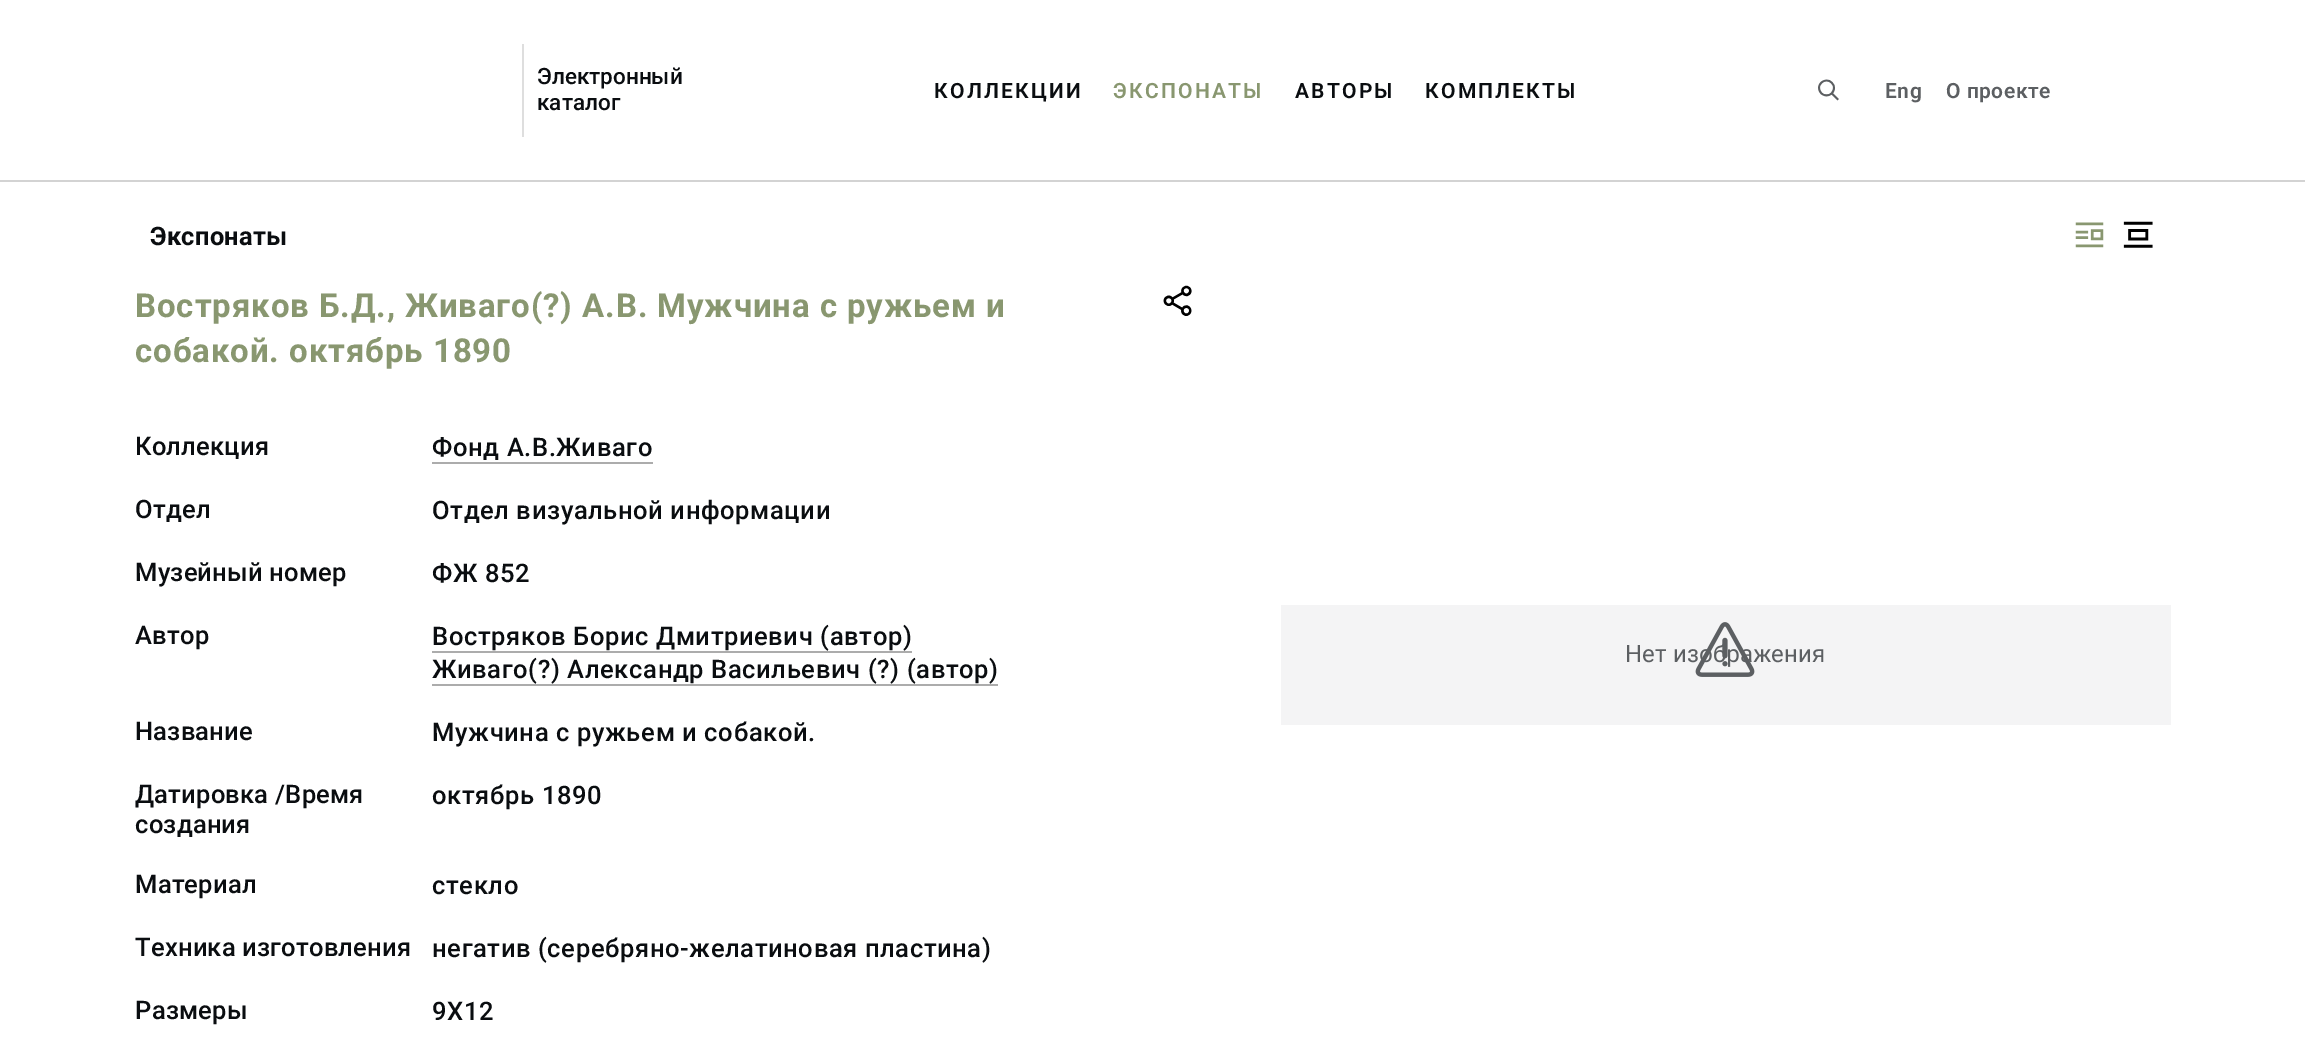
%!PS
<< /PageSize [2305 1039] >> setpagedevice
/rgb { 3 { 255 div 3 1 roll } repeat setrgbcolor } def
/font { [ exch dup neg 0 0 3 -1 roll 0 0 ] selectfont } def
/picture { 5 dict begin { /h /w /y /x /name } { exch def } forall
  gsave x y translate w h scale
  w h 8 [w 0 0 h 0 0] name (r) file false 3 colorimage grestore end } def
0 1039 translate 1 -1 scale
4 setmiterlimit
255 255 255 rgb
0 0 2305 1039 rectfill
211 211 211 rgb
0 180 2305 2 rectfill
222 222 222 rgb
522 44 2 93 rectfill
(img/1.rgb) 1818 79 21 22 picture
(img/2.rgb) 2075 222 29 26 picture
(img/3.rgb) 2123 221 30 27 picture
(img/4.rgb) 1163 285 29 31 picture
[
  [432 462 221 2 172 172 172]
  [432 651 480 2 172 172 172]
  [432 684 566 2 172 172 172]
  [1281 605 890 120 244 244 245]
] { aload pop rgb rectfill } forall
/Roboto-Medium 22.5 font
10 13 16 rgb
537 84 moveto (Электронный) show
537 110 moveto (каталог) show
/Roboto-SemiBold 21 font
934 98 moveto 2.25 0 (КОЛЛЕКЦИИ) ashow
137 151 112 rgb
1113 98 moveto 2.25 0 (ЭКСПОНАТЫ) ashow
10 13 16 rgb
1295 98 moveto 2.25 0 (АВТОРЫ) ashow
1425 98 moveto 2.25 0 (КОМПЛЕКТЫ) ashow
92 95 98 rgb
1885 98 moveto 0.5 0 (Eng) ashow
1946 98 moveto 0.5 0 (О проекте) ashow
/Roboto-Bold 25.5 font
10 13 16 rgb
150 245 moveto 0.25 0 (Экспонаты) ashow
/Roboto-Bold 33 font
137 151 112 rgb
135 317 moveto 0.9 0 (Востряков Б.Д., Живаго\(?\) А.В. Мужчина с ружьем и) ashow
135 362 moveto 0.9 0 (собакой. октябрь 1890) ashow
/Roboto-Medium 25.5 font
10 13 16 rgb
135 455 moveto 0.25 0 (Коллекция) ashow
432 456 moveto 0.65 0 (Фонд А.В.Живаго) ashow
135 518 moveto 0.25 0 (Отдел) ashow
432 519 moveto 0.65 0 (Отдел визуальной информации) ashow
135 581 moveto 0.25 0 (Музейный номер) ashow
432 582 moveto 0.65 0 (ФЖ 852) ashow
135 644 moveto 0.25 0 (Автор) ashow
432 645 moveto 0.65 0 (Востряков Борис Дмитриевич \(автор\)) ashow
432 678 moveto 0.65 0 (Живаго\(?\) Александр Васильевич \(?\) \(автор\)) ashow
135 740 moveto 0.25 0 (Название) ashow
432 741 moveto 0.65 0 (Мужчина с ружьем и собакой.) ashow
135 803 moveto 0.25 0 (Датировка /Время) ashow
135 833 moveto 0.25 0 (создания) ashow
432 804 moveto 0.65 0 (октябрь 1890) ashow
135 893 moveto 0.25 0 (Материал) ashow
432 894 moveto 0.65 0 (стекло) ashow
135 956 moveto 0.25 0 (Техника изготовления) ashow
432 957 moveto 0.65 0 (негатив \(серебряно-желатиновая пластина\)) ashow
135 1019 moveto 0.25 0 (Размеры) ashow
432 1020 moveto 0.65 0 (9Х12) ashow
/Roboto-Regular 24 font
92 95 98 rgb
1625 662 moveto 0.1 0 (Нет изображения) ashow
(img/5.rgb) 1695 622 60 55 picture
showpage
